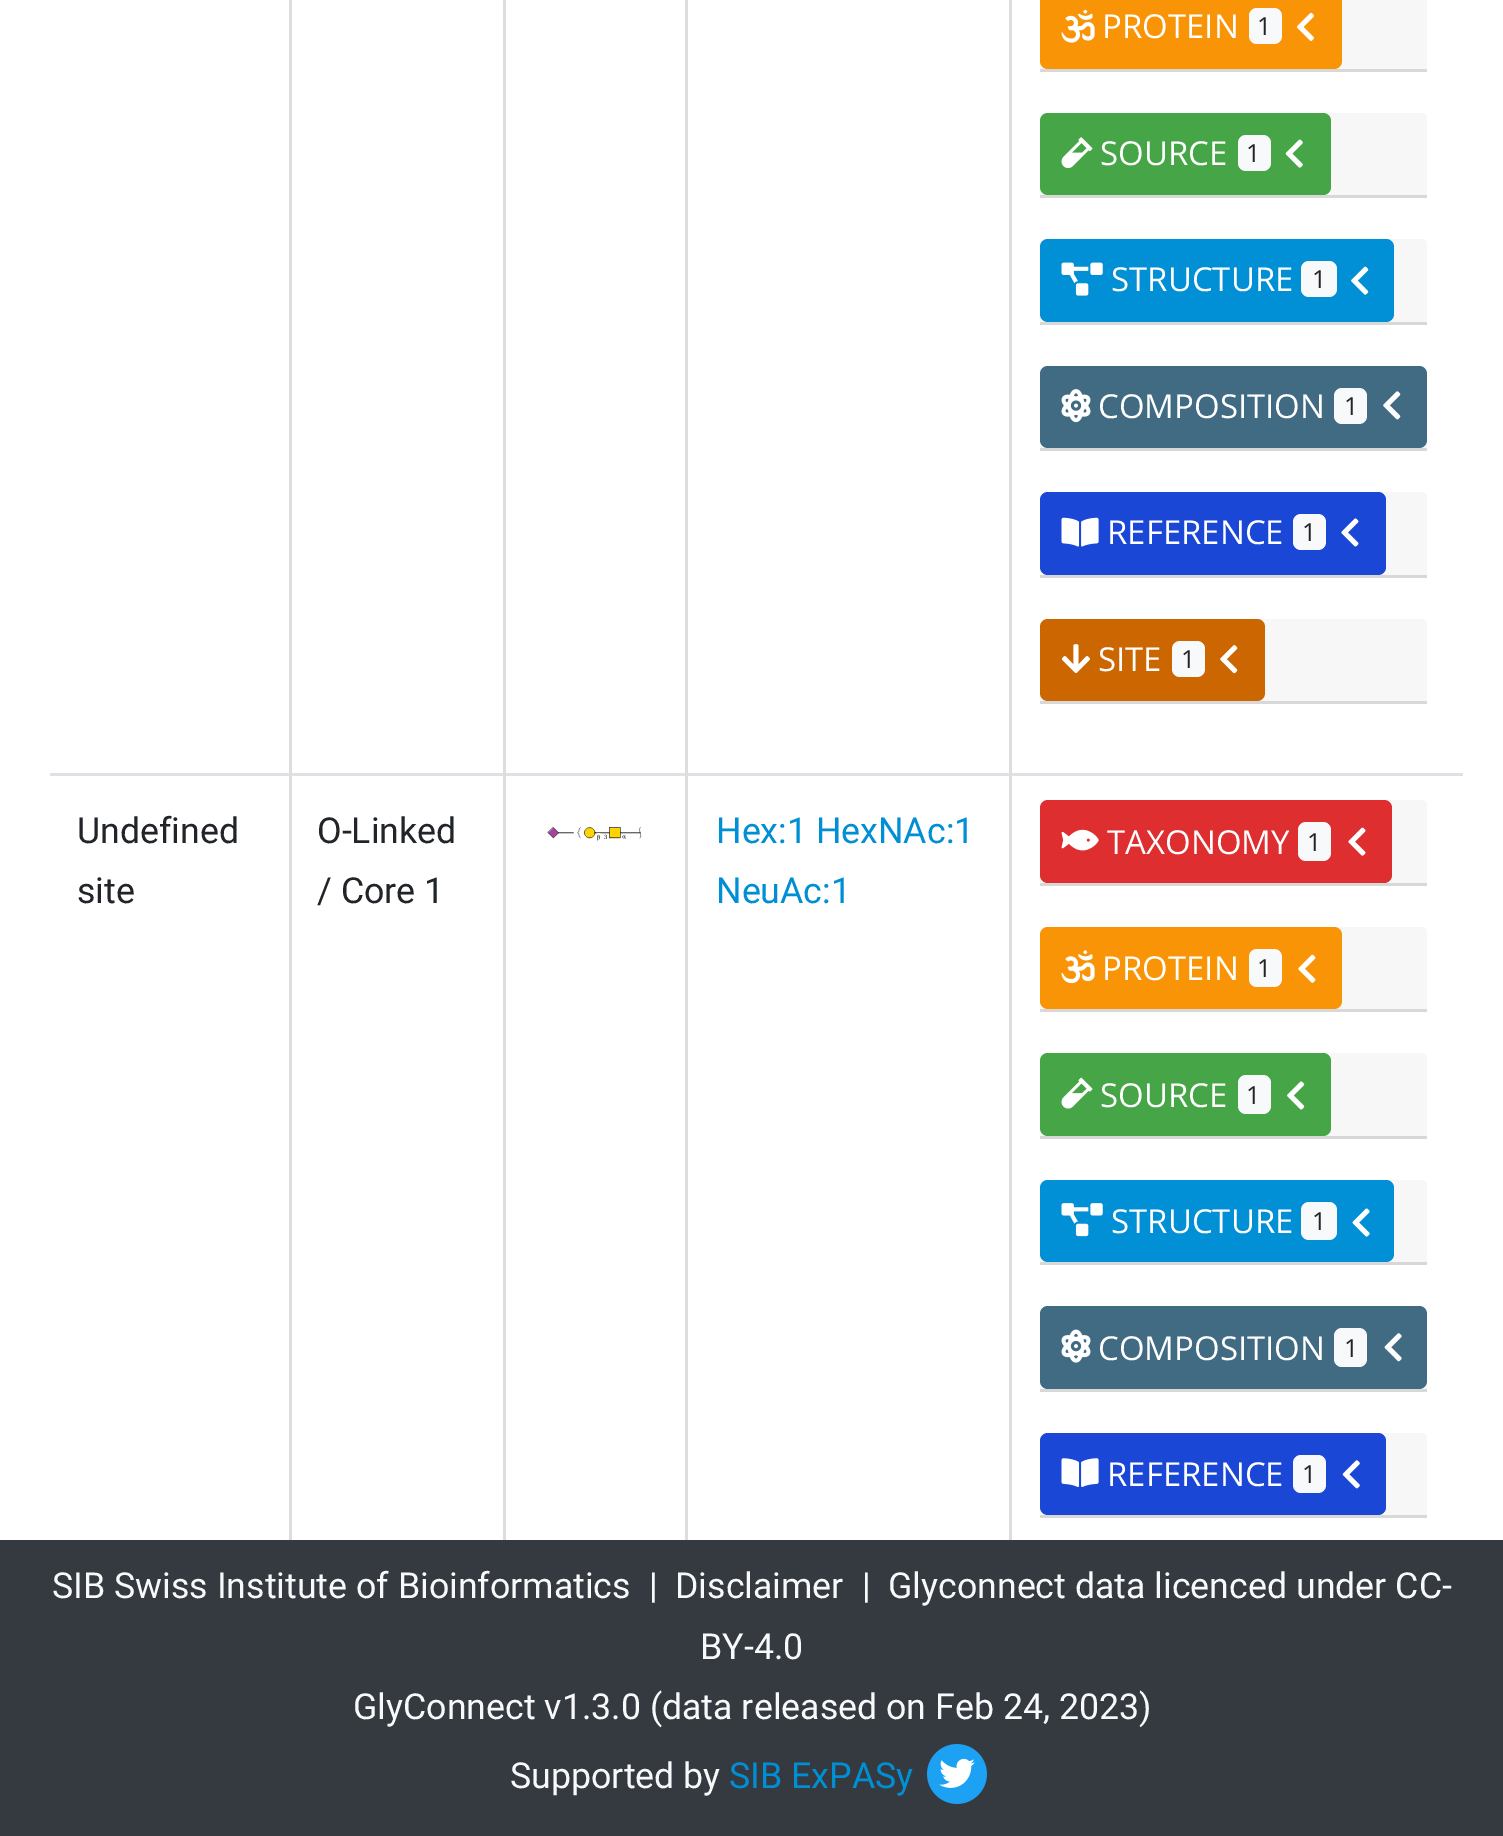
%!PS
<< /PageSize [1503 1836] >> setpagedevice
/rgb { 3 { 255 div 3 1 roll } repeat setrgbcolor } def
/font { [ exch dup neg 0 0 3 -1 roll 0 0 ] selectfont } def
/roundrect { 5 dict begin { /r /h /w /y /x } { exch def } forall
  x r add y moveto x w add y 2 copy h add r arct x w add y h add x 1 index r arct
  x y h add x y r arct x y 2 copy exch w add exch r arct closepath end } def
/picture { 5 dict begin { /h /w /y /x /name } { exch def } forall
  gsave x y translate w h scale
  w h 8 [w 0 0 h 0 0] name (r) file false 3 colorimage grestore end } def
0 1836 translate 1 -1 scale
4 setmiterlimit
255 255 255 rgb
0 0 1503 1836 rectfill
[
  [1009 773 454 3 222 226 230]
  [1009 773 3 767 221 221 221]
  [685 773 327 3 222 226 230]
  [685 773 3 767 221 221 221]
  [503 773 185 3 222 226 230]
  [503 773 3 767 221 221 221]
  [289 773 217 3 222 226 230]
  [289 773 3 767 221 221 221]
  [50 773 242 3 222 226 230]
  [289 0 3 776 221 221 221]
  [503 0 3 776 221 221 221]
  [685 0 3 776 221 221 221]
  [1009 0 3 776 221 221 221]
  [1040 0 387 69 247 247 247]
  [1040 69 387 3 216 216 216]
] { aload pop rgb rectfill } forall
248 148 6 rgb
1040 -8 302 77 8 roundrect fill
(img/1.rgb) 1061 9 34 34 picture
248 249 250 rgb
1249 8 33 36 8 roundrect fill
(img/2.rgb) 1296 12 18 29 picture
247 247 247 rgb
1046 113 moveto 1421 113 lineto 1424.5 113 1427 115.5 1427 119 curveto 1427 198 lineto 1040 198 lineto 1040 119 lineto 1040 115.5 1042.5 113 1046 113 curveto closepath fill
216 216 216 rgb
1040 195 387 3 rectfill
70 165 70 rgb
1040 113 291 82 8 roundrect fill
(img/3.rgb) 1061 137 32 32 picture
248 249 250 rgb
1238 135 33 36 8 roundrect fill
(img/4.rgb) 1285 139 18 29 picture
247 247 247 rgb
1046 239 moveto 1421 239 lineto 1424.5 239 1427 241.5 1427 245 curveto 1427 325 lineto 1040 325 lineto 1040 245 lineto 1040 241.5 1042.5 239 1046 239 curveto closepath fill
216 216 216 rgb
1040 322 387 3 rectfill
1 143 213 rgb
1040 239 354 83 8 roundrect fill
(img/5.rgb) 1061 262 42 34 picture
248 249 250 rgb
1301 261 36 36 8 roundrect fill
(img/6.rgb) 1351 266 18 29 picture
247 247 247 rgb
1046 366 moveto 1421 366 lineto 1424.5 366 1427 368.5 1427 372 curveto 1427 451 lineto 1040 451 lineto 1040 372 lineto 1040 368.5 1042.5 366 1046 366 curveto closepath fill
216 216 216 rgb
1040 448 387 3 rectfill
64 107 131 rgb
1040 366 387 82 8 roundrect fill
(img/7.rgb) 1061 389 30 34 picture
248 249 250 rgb
1334 388 33 36 8 roundrect fill
(img/8.rgb) 1383 391 18 29 picture
247 247 247 rgb
1046 492 moveto 1421 492 lineto 1424.5 492 1427 494.5 1427 498 curveto 1427 578 lineto 1040 578 lineto 1040 498 lineto 1040 494.5 1042.5 492 1046 492 curveto closepath fill
216 216 216 rgb
1040 575 387 3 rectfill
26 71 213 rgb
1040 492 346 83 8 roundrect fill
(img/9.rgb) 1061 517 38 30 picture
248 249 250 rgb
1293 514 33 36 8 roundrect fill
(img/10.rgb) 1341 518 18 29 picture
247 247 247 rgb
1046 619 moveto 1421 619 lineto 1424.5 619 1427 621.5 1427 625 curveto 1427 704 lineto 1040 704 lineto 1040 625 lineto 1040 621.5 1042.5 619 1046 619 curveto closepath fill
216 216 216 rgb
1040 701 387 3 rectfill
204 102 0 rgb
1040 619 225 82 8 roundrect fill
(img/11.rgb) 1061 644 29 29 picture
248 249 250 rgb
1172 641 33 36 8 roundrect fill
(img/12.rgb) 1220 645 18 29 picture
(img/13.rgb) 547 827 95 14 picture
247 247 247 rgb
1046 800 moveto 1421 800 lineto 1424.5 800 1427 802.5 1427 806 curveto 1427 886 lineto 1040 886 lineto 1040 806 lineto 1040 802.5 1042.5 800 1046 800 curveto closepath fill
216 216 216 rgb
1040 883 387 3 rectfill
223 46 48 rgb
1040 800 352 83 8 roundrect fill
(img/14.rgb) 1061 829 38 22 picture
248 249 250 rgb
1298 822 33 39 8 roundrect fill
(img/15.rgb) 1348 827 18 29 picture
247 247 247 rgb
1046 927 moveto 1421 927 lineto 1424.5 927 1427 929.5 1427 933 curveto 1427 1012 lineto 1040 1012 lineto 1040 933 lineto 1040 929.5 1042.5 927 1046 927 curveto closepath fill
216 216 216 rgb
1040 1009 387 3 rectfill
248 148 6 rgb
1040 927 302 82 8 roundrect fill
(img/16.rgb) 1061 950 34 34 picture
248 249 250 rgb
1249 949 33 38 8 roundrect fill
(img/17.rgb) 1298 954 18 29 picture
247 247 247 rgb
1046 1053 moveto 1421 1053 lineto 1424.5 1053 1427 1055.5 1427 1059 curveto 1427 1139 lineto 1040 1139 lineto 1040 1059 lineto 1040 1055.5 1042.5 1053 1046 1053 curveto closepath fill
216 216 216 rgb
1040 1136 387 3 rectfill
70 165 70 rgb
1040 1053 291 83 8 roundrect fill
(img/18.rgb) 1061 1077 32 32 picture
248 249 250 rgb
1238 1075 33 39 8 roundrect fill
(img/19.rgb) 1287 1081 18 29 picture
247 247 247 rgb
1046 1180 moveto 1421 1180 lineto 1424.5 1180 1427 1182.5 1427 1186 curveto 1427 1265 lineto 1040 1265 lineto 1040 1186 lineto 1040 1182.5 1042.5 1180 1046 1180 curveto closepath fill
216 216 216 rgb
1040 1262 387 3 rectfill
1 143 213 rgb
1040 1180 354 82 8 roundrect fill
(img/20.rgb) 1061 1203 42 34 picture
248 249 250 rgb
1301 1202 36 38 8 roundrect fill
(img/21.rgb) 1352 1208 18 29 picture
247 247 247 rgb
1046 1306 moveto 1421 1306 lineto 1424.5 1306 1427 1308.5 1427 1312 curveto 1427 1392 lineto 1040 1392 lineto 1040 1312 lineto 1040 1308.5 1042.5 1306 1046 1306 curveto closepath fill
216 216 216 rgb
1040 1389 387 3 rectfill
64 107 131 rgb
1040 1306 387 83 8 roundrect fill
(img/22.rgb) 1061 1329 30 34 picture
248 249 250 rgb
1334 1328 33 39 8 roundrect fill
(img/23.rgb) 1384 1333 18 29 picture
247 247 247 rgb
1046 1433 moveto 1421 1433 lineto 1424.5 1433 1427 1435.5 1427 1439 curveto 1427 1518 lineto 1040 1518 lineto 1040 1439 lineto 1040 1435.5 1042.5 1433 1046 1433 curveto closepath fill
216 216 216 rgb
1040 1515 387 3 rectfill
26 71 213 rgb
1040 1433 346 82 8 roundrect fill
(img/24.rgb) 1061 1458 38 29 picture
248 249 250 rgb
1293 1455 33 38 8 roundrect fill
(img/25.rgb) 1342 1460 18 29 picture
52 58 64 rgb
0 1540 1503 296 rectfill
(img/26.rgb) 927 1744 60 60 picture
/OpenSans-Regular 33 font
255 255 255 rgb
1102 38 moveto (PROTEIN) show
/OpenSans-Regular 25 font
33 37 41 rgb
1257 35 moveto (1) show
/OpenSans-Regular 33 font
255 255 255 rgb
1100 165 moveto (SOURCE) show
/OpenSans-Regular 25 font
33 37 41 rgb
1246 162 moveto (1) show
/OpenSans-Regular 33 font
255 255 255 rgb
1111 291 moveto (STRUCTURE) show
/OpenSans-Regular 25 font
33 37 41 rgb
1312 288 moveto (1) show
/OpenSans-Regular 33 font
255 255 255 rgb
1098 418 moveto (COMPOSITION) show
/OpenSans-Regular 25 font
33 37 41 rgb
1344 415 moveto (1) show
/OpenSans-Regular 33 font
255 255 255 rgb
1107 544 moveto (REFERENCE) show
/OpenSans-Regular 25 font
33 37 41 rgb
1302 541 moveto (1) show
/OpenSans-Regular 33 font
255 255 255 rgb
1098 671 moveto (SITE) show
/OpenSans-Regular 25 font
33 37 41 rgb
1181 668 moveto (1) show
/Roboto-Regular 35.75 font
[
  [(Undefined) 77 843]
  [(site) 77 903]
  [(O-Linked) 317 843]
  [(/ Core 1) 317 903]
] { aload pop moveto show } forall
0 143 213 rgb
716 843 moveto (Hex:1 HexNAc:1) show
716 903 moveto (NeuAc:1) show
/OpenSans-Regular 33 font
255 255 255 rgb
1107 854 moveto (TAXONOMY) show
/OpenSans-Regular 25 font
33 37 41 rgb
1307 851 moveto (1) show
/OpenSans-Regular 33 font
255 255 255 rgb
1102 980 moveto (PROTEIN) show
/OpenSans-Regular 25 font
33 37 41 rgb
1257 977 moveto (1) show
/OpenSans-Regular 33 font
255 255 255 rgb
1100 1107 moveto (SOURCE) show
/OpenSans-Regular 25 font
33 37 41 rgb
1246 1104 moveto (1) show
/OpenSans-Regular 33 font
255 255 255 rgb
1111 1233 moveto (STRUCTURE) show
/OpenSans-Regular 25 font
33 37 41 rgb
1312 1230 moveto (1) show
/OpenSans-Regular 33 font
255 255 255 rgb
1098 1360 moveto (COMPOSITION) show
/OpenSans-Regular 25 font
33 37 41 rgb
1344 1357 moveto (1) show
/OpenSans-Regular 33 font
255 255 255 rgb
1107 1486 moveto (REFERENCE) show
/OpenSans-Regular 25 font
33 37 41 rgb
1302 1483 moveto (1) show
/Roboto-Regular 35.75 font
248 249 250 rgb
[
  [(SIB Swiss Institute of Bioinformatics) 52 1598]
  [(|) 649 1598]
  [(Disclaimer) 675 1598]
  [(|) 862 1598]
  [(Glyconnect data licenced under CC-) 888 1598]
  [(BY-4.0) 700 1659]
  [(GlyConnect v1.3.0 \(data released on Feb 24, 2023\)) 353 1719]
  [(Supported by) 510 1788]
] { aload pop moveto show } forall
0 143 213 rgb
729 1788 moveto (SIB ExPASy) show
showpage
